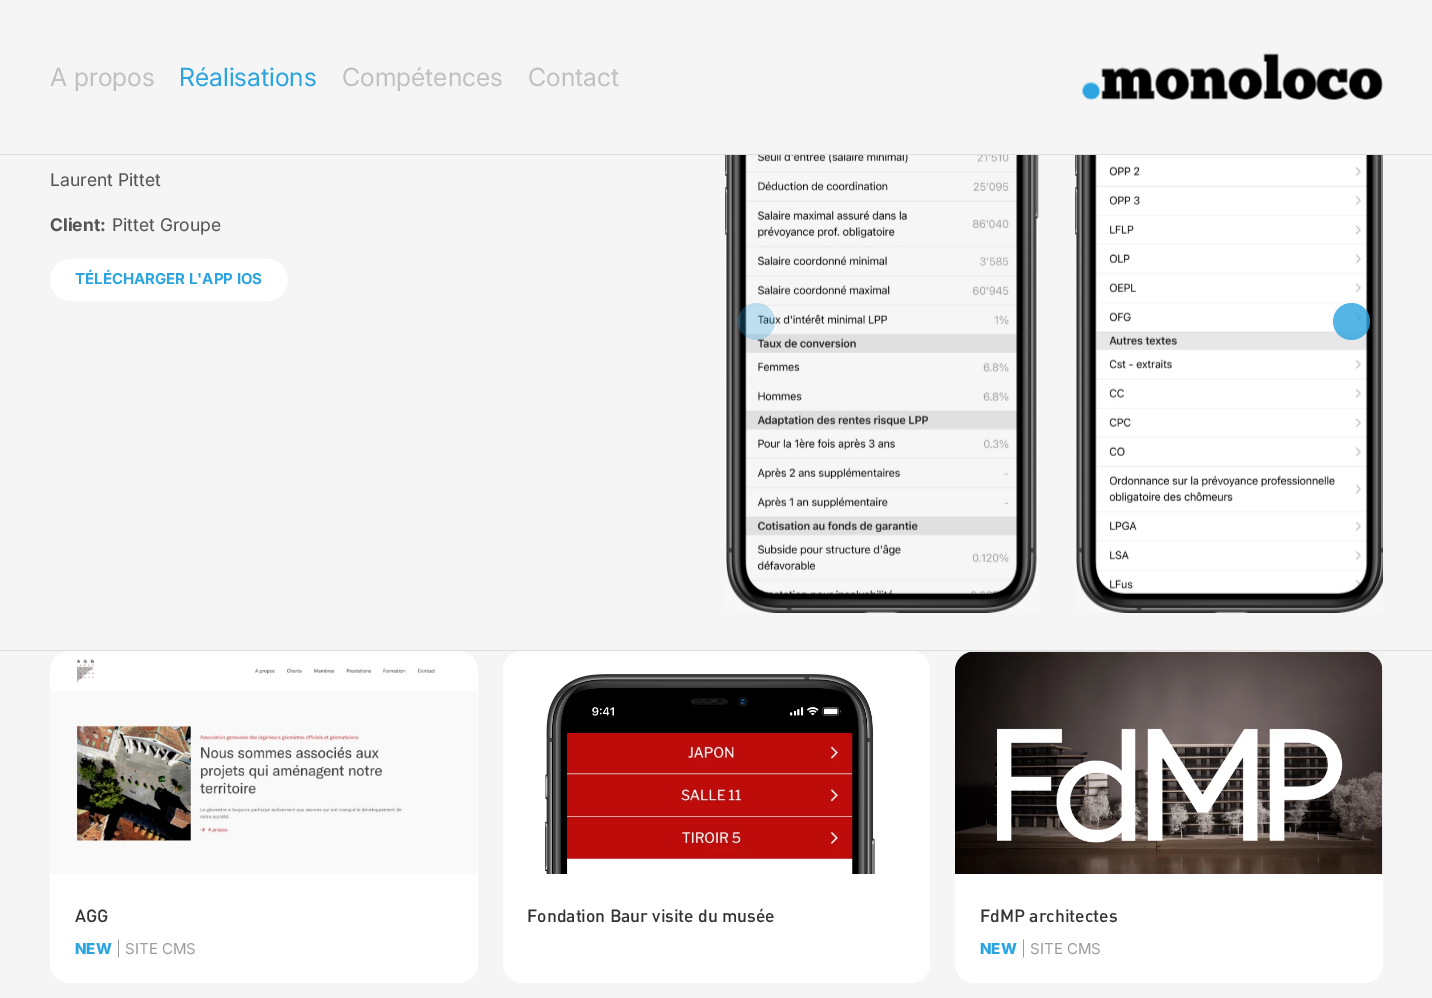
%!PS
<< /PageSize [1432 998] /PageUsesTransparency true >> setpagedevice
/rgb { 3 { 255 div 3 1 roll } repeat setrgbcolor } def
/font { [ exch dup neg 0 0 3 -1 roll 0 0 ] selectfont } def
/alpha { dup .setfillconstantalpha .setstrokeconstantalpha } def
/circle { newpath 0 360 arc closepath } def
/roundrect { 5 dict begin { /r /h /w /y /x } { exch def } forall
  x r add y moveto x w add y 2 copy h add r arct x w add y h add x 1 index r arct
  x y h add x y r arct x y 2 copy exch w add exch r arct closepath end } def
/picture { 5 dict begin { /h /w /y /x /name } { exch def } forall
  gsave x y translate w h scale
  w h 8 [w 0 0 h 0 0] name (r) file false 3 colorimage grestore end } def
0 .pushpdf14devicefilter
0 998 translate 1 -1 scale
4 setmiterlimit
245 245 245 rgb
0 0 1432 998 rectfill
221 221 221 rgb
0 154 1432 1 rectfill
(img/1.rgb) 1082 53 301 47 picture
255 255 255 rgb
50 259 238 42 21 roundrect fill
(img/3.rgb) 745 155 273 439 picture
(img/2.rgb) 725 155 314 458 picture
(img/5.rgb) 1096 155 272 439 picture
(img/4.rgb) 1075 155 308 458 picture
0.28 alpha
43 164 223 rgb
756.5 321.5 18.5 circle fill
0.8 alpha
1351.5 321.5 18.5 circle fill
1 alpha
221 221 221 rgb
0 650 1432 1 rectfill
255 255 255 rgb
50 651 428 332 19 roundrect fill
(img/6.rgb) 50 659 427 215 picture
503 651 427 332 19 roundrect fill
(img/8.rgb) 567 732 286 128 picture
(img/7.rgb) 545 674 330 200 picture
955 651 428 332 19 roundrect fill
(img/9.rgb) 955 651 428 223 picture
/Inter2-Regular 25 font
192 192 192 rgb
50 86 moveto (A propos) show
43 164 223 rgb
179 86 moveto (Réalisations) show
192 192 192 rgb
342 86 moveto (Compétences) show
528 86 moveto (Contact) show
/Inter-Regular 17.5 font
84 84 84 rgb
50 186 moveto (Laurent Pittet) show
/Inter-Bold 17.5 font
50 231 moveto (Client:) show
/Inter-Regular 17.5 font
112 231 moveto (Pittet Groupe) show
/Inter-Bold 15 font
43 164 223 rgb
75 284 moveto (TÉLÉCHARGER L'APP IOS) show
/DIN-Medium 17.5 font
51 51 51 rgb
75 922 moveto (AGG) show
/Inter-ExtraBold 15 font
43 164 223 rgb
75 954 moveto (NEW) show
/Inter-Regular 15 font
156 156 156 rgb
116 954 moveto (| SITE CMS) show
/DIN-Medium 17.5 font
51 51 51 rgb
527 922 moveto (Fondation Baur visite du musée) show
980 922 moveto (FdMP architectes) show
/Inter-ExtraBold 15 font
43 164 223 rgb
980 954 moveto (NEW) show
/Inter-Regular 15 font
156 156 156 rgb
1021 954 moveto (| SITE CMS) show
.poppdf14devicefilter showpage
